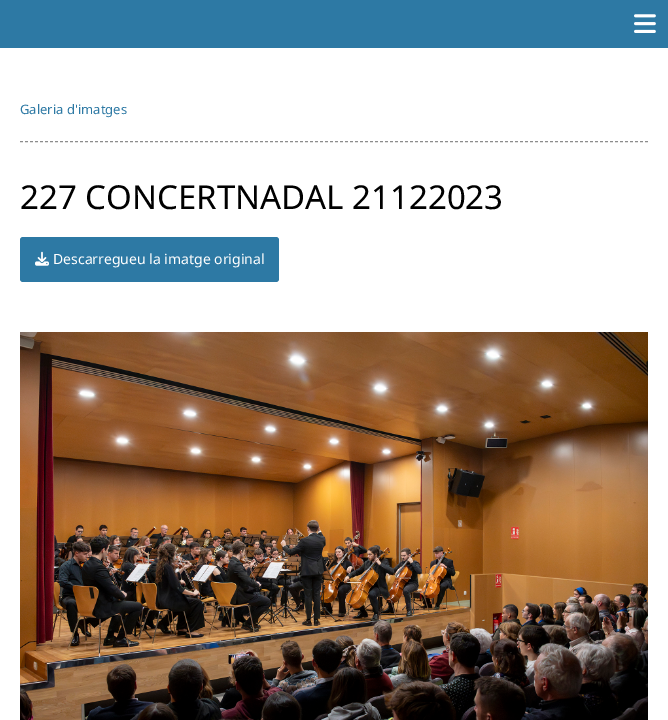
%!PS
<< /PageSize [668 720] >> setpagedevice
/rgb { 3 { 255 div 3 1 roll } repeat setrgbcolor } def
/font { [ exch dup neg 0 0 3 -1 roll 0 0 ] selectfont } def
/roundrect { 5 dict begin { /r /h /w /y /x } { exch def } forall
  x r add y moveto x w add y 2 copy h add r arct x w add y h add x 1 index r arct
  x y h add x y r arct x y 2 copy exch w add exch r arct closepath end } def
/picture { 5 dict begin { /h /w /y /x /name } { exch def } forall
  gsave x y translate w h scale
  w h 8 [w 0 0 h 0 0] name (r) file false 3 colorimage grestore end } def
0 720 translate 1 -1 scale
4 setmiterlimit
255 255 255 rgb
0 0 668 720 rectfill
45 121 164 rgb
0 0 668 48 rectfill
(img/1.rgb) 634 14 22 19 picture
140 140 140 rgb
[3 2] 0 setdash
20 141.5 moveto 648 141.5 lineto stroke
45 121 164 rgb
20 237 259 45 3 roundrect fill
(img/2.rgb) 35 251 14 15 picture
(img/3.rgb) 20 332 628 388 picture
/NotoSans-Regular 13 font
20 114 moveto (Galeria d'imatges) show
/NotoSans-Regular 33 font
0 0 0 rgb
20 209 moveto (227 CONCERTNADAL 21122023) show
/NotoSans-Regular 14 font
255 255 255 rgb
53 264 moveto (Descarregueu la imatge original) show
showpage
